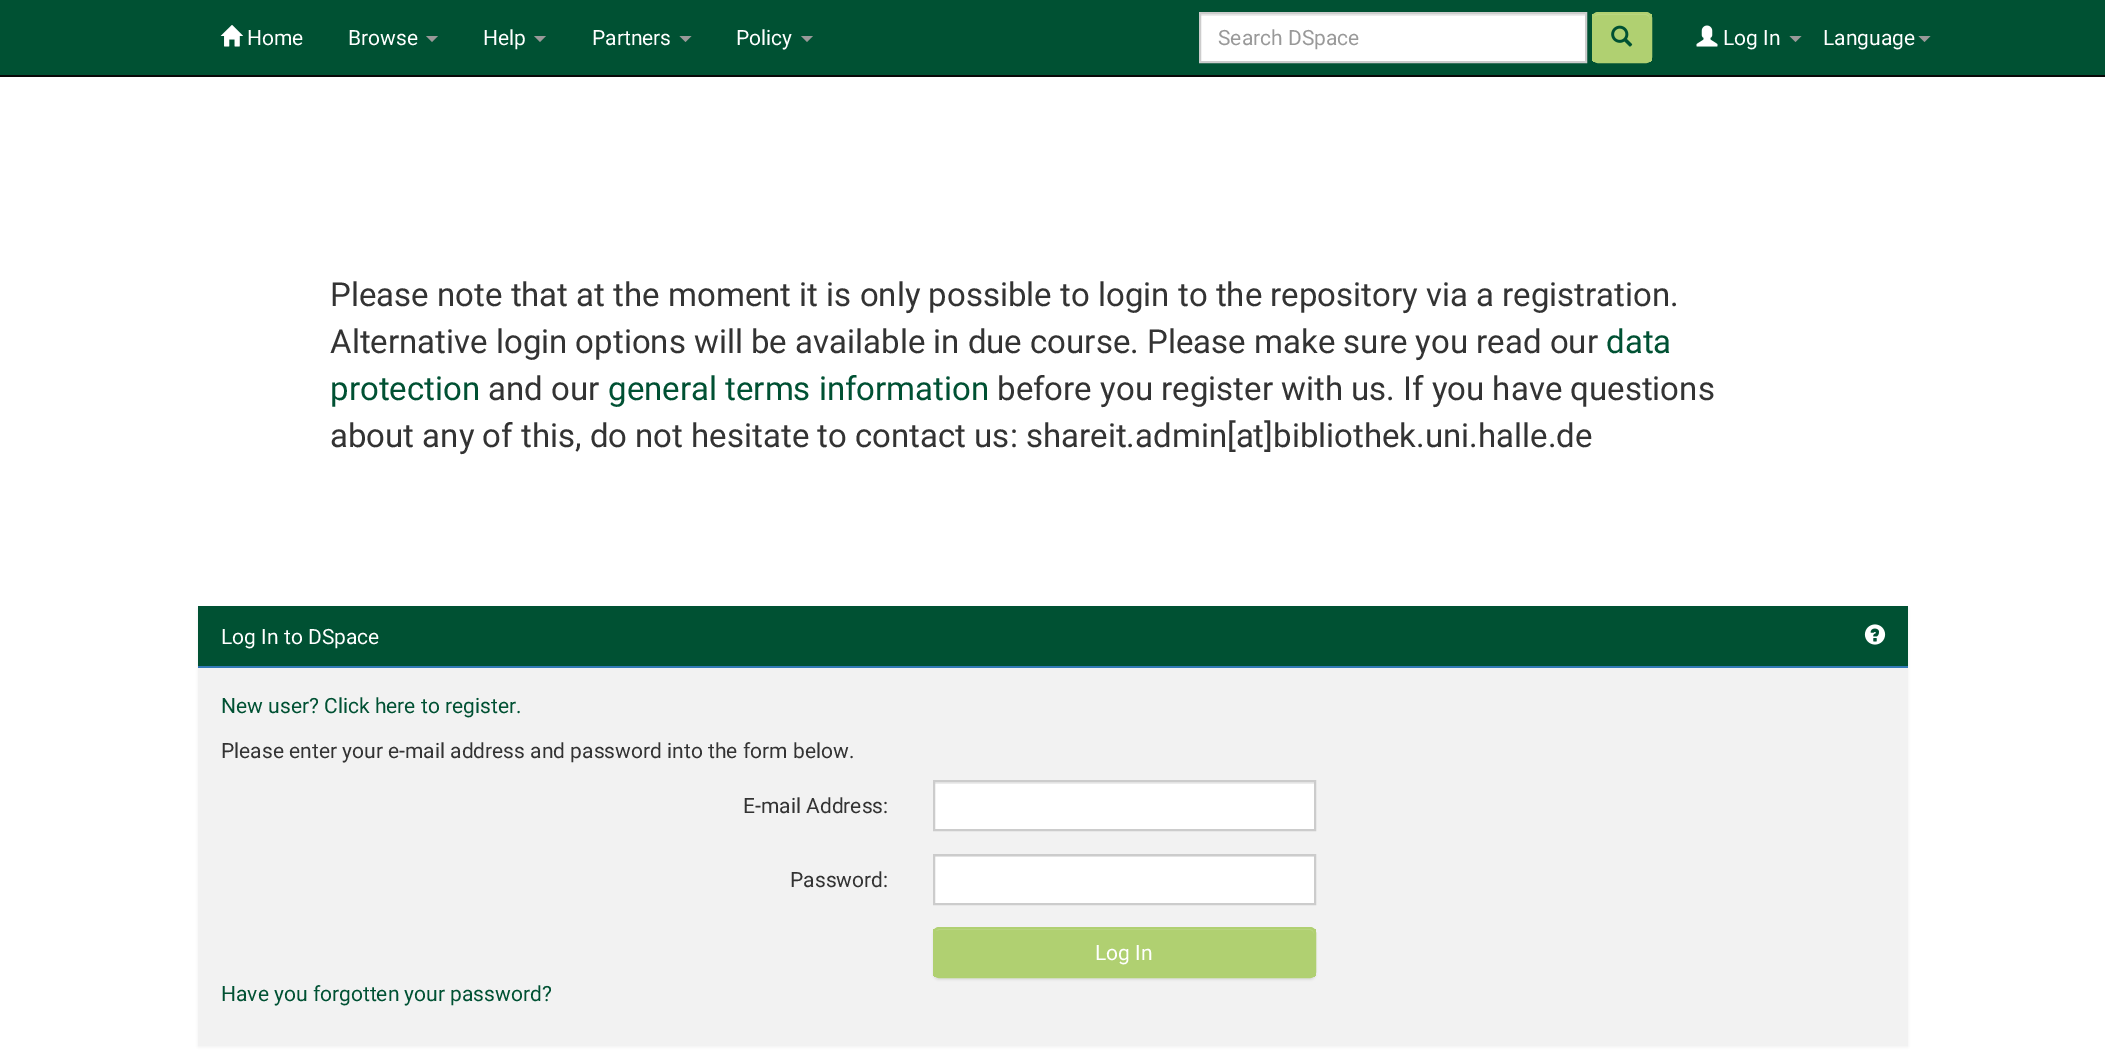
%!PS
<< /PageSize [2105 1052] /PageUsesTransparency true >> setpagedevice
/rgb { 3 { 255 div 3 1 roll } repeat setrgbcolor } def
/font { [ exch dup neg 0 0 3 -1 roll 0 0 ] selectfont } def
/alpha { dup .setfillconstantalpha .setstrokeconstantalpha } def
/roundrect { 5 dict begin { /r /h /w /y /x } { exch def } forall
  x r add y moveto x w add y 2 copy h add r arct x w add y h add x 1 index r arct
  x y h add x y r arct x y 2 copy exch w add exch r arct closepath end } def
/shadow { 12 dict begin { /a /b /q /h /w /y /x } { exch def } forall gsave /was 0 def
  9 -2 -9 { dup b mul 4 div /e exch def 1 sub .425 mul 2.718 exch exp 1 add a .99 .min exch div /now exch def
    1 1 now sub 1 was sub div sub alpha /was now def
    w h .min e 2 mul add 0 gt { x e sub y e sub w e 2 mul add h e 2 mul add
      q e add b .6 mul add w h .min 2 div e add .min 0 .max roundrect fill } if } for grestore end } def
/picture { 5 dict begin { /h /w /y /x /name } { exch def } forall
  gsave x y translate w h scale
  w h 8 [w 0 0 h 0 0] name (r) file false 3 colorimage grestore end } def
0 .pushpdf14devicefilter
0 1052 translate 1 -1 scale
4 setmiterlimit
255 255 255 rgb
0 0 2105 1052 rectfill
0 81 51 rgb
0 0 2105 75 rectfill
8 8 8 rgb
0 75 2105 2 rectfill
(img/1.rgb) 220 25 23 22 picture
153 153 153 rgb
426 36 moveto 438 36 lineto 432 42 lineto closepath fill
534 36 moveto 546 36 lineto 540 42 lineto closepath fill
679.5 36 moveto 691.5 36 lineto 685.5 42 lineto closepath fill
801 36 moveto 813 36 lineto 807 42 lineto closepath fill
255 255 255 rgb
1201 16 384 45 rectfill
236 236 236 rgb
1200 14 386 2 rectfill
204 204 204 rgb
2 setlinewidth
1200 13 386 49 rectstroke
gsave
1592 12 60 51 6 roundrect clip newpath
176 208 113 rgb
1592 14 60 48 rectfill
grestore
188 215 134 rgb
1598 15 moveto 1646 15 lineto 1648 15 1650 17 1650 20 curveto 1650 12 1643 14 1637 14 curveto 1606 14 lineto 1600 14 1593 12 1593 20 curveto 1593 17 1595 15 1598 15 curveto closepath fill
176 208 113 rgb
1593 13 58 49 5 roundrect stroke
(img/2.rgb) 1611 25 22 22 picture
(img/3.rgb) 1696 25 22 22 picture
153 153 153 rgb
1789.5 36 moveto 1801.5 36 lineto 1795.5 42 lineto closepath fill
1918.5 36 moveto 1930.5 36 lineto 1924.5 42 lineto closepath fill
0 0 0 rgb
198 608 1710 439 0 1.5 0.05 shadow
[
  [198 668 1710 378 242 242 242]
  [198 666 1710 2 51 122 183]
  [198 606 1710 60 0 81 51]
] { aload pop rgb rectfill } forall
(img/4.rgb) 1864 624 22 21 picture
255 255 255 rgb
935 784 379 45 rectfill
236 236 236 rgb
935 782 379 2 rectfill
204 204 204 rgb
934 781 381 49 rectstroke
255 255 255 rgb
935 857 379 46 rectfill
236 236 236 rgb
935 856 379 1 rectfill
204 204 204 rgb
934 855 381 49 rectstroke
0 0 0 rgb
933 929 383 51 6 1 0.07 shadow
gsave
933 927 383 51 6 roundrect clip newpath
176 208 113 rgb
933 929 383 48 rectfill
grestore
188 215 134 rgb
939 930 moveto 1310 930 lineto 1312 930 1314 932 1314 934 curveto 1314 931 1312 929 1309 929 curveto 940 929 lineto 938 929 937 930 936 931 curveto closepath fill
176 208 113 rgb
934 928 381 49 5 roundrect stroke
/Roboto-Regular 21 font
255 255 255 rgb
[
  [(Home) 247 45]
  [(Browse) 348 45]
  [(Help) 483 45]
  [(Partners) 592 45]
  [(Policy) 736 45]
] { aload pop moveto show } forall
153 153 153 rgb
1218 45 moveto (Search DSpace) show
255 255 255 rgb
1723 45 moveto (Log In) show
1823 45 moveto (Language) show
/Roboto-Regular 33 font
51 51 51 rgb
330 306 moveto (Please note that at the moment it is only possible to login to the repository via a registration.) show
330 353 moveto (Alternative login options will be available in due course. Please make sure you read our) show
0 81 51 rgb
1606 353 moveto (data) show
330 400 moveto (protection) show
51 51 51 rgb
488 400 moveto (and our) show
0 81 51 rgb
608 400 moveto (general terms information) show
51 51 51 rgb
997 400 moveto (before you register with us. If you have questions) show
330 447 moveto (about any of this, do not hesitate to contact us: shareit.admin[at]bibliothek.uni.halle.de) show
/Roboto-Regular 21 font
255 255 255 rgb
221 644 moveto (Log In to DSpace) show
0 81 51 rgb
221 713 moveto (New user? Click here to register.) show
51 51 51 rgb
[
  [(Please enter your e-mail address and password into the form below.) 221 758]
  [(E-mail Address:) 743 813]
  [(Password:) 790 887]
] { aload pop moveto show } forall
255 255 255 rgb
1095 960 moveto (Log In) show
0 81 51 rgb
221 1001 moveto (Have you forgotten your password?) show
.poppdf14devicefilter showpage
